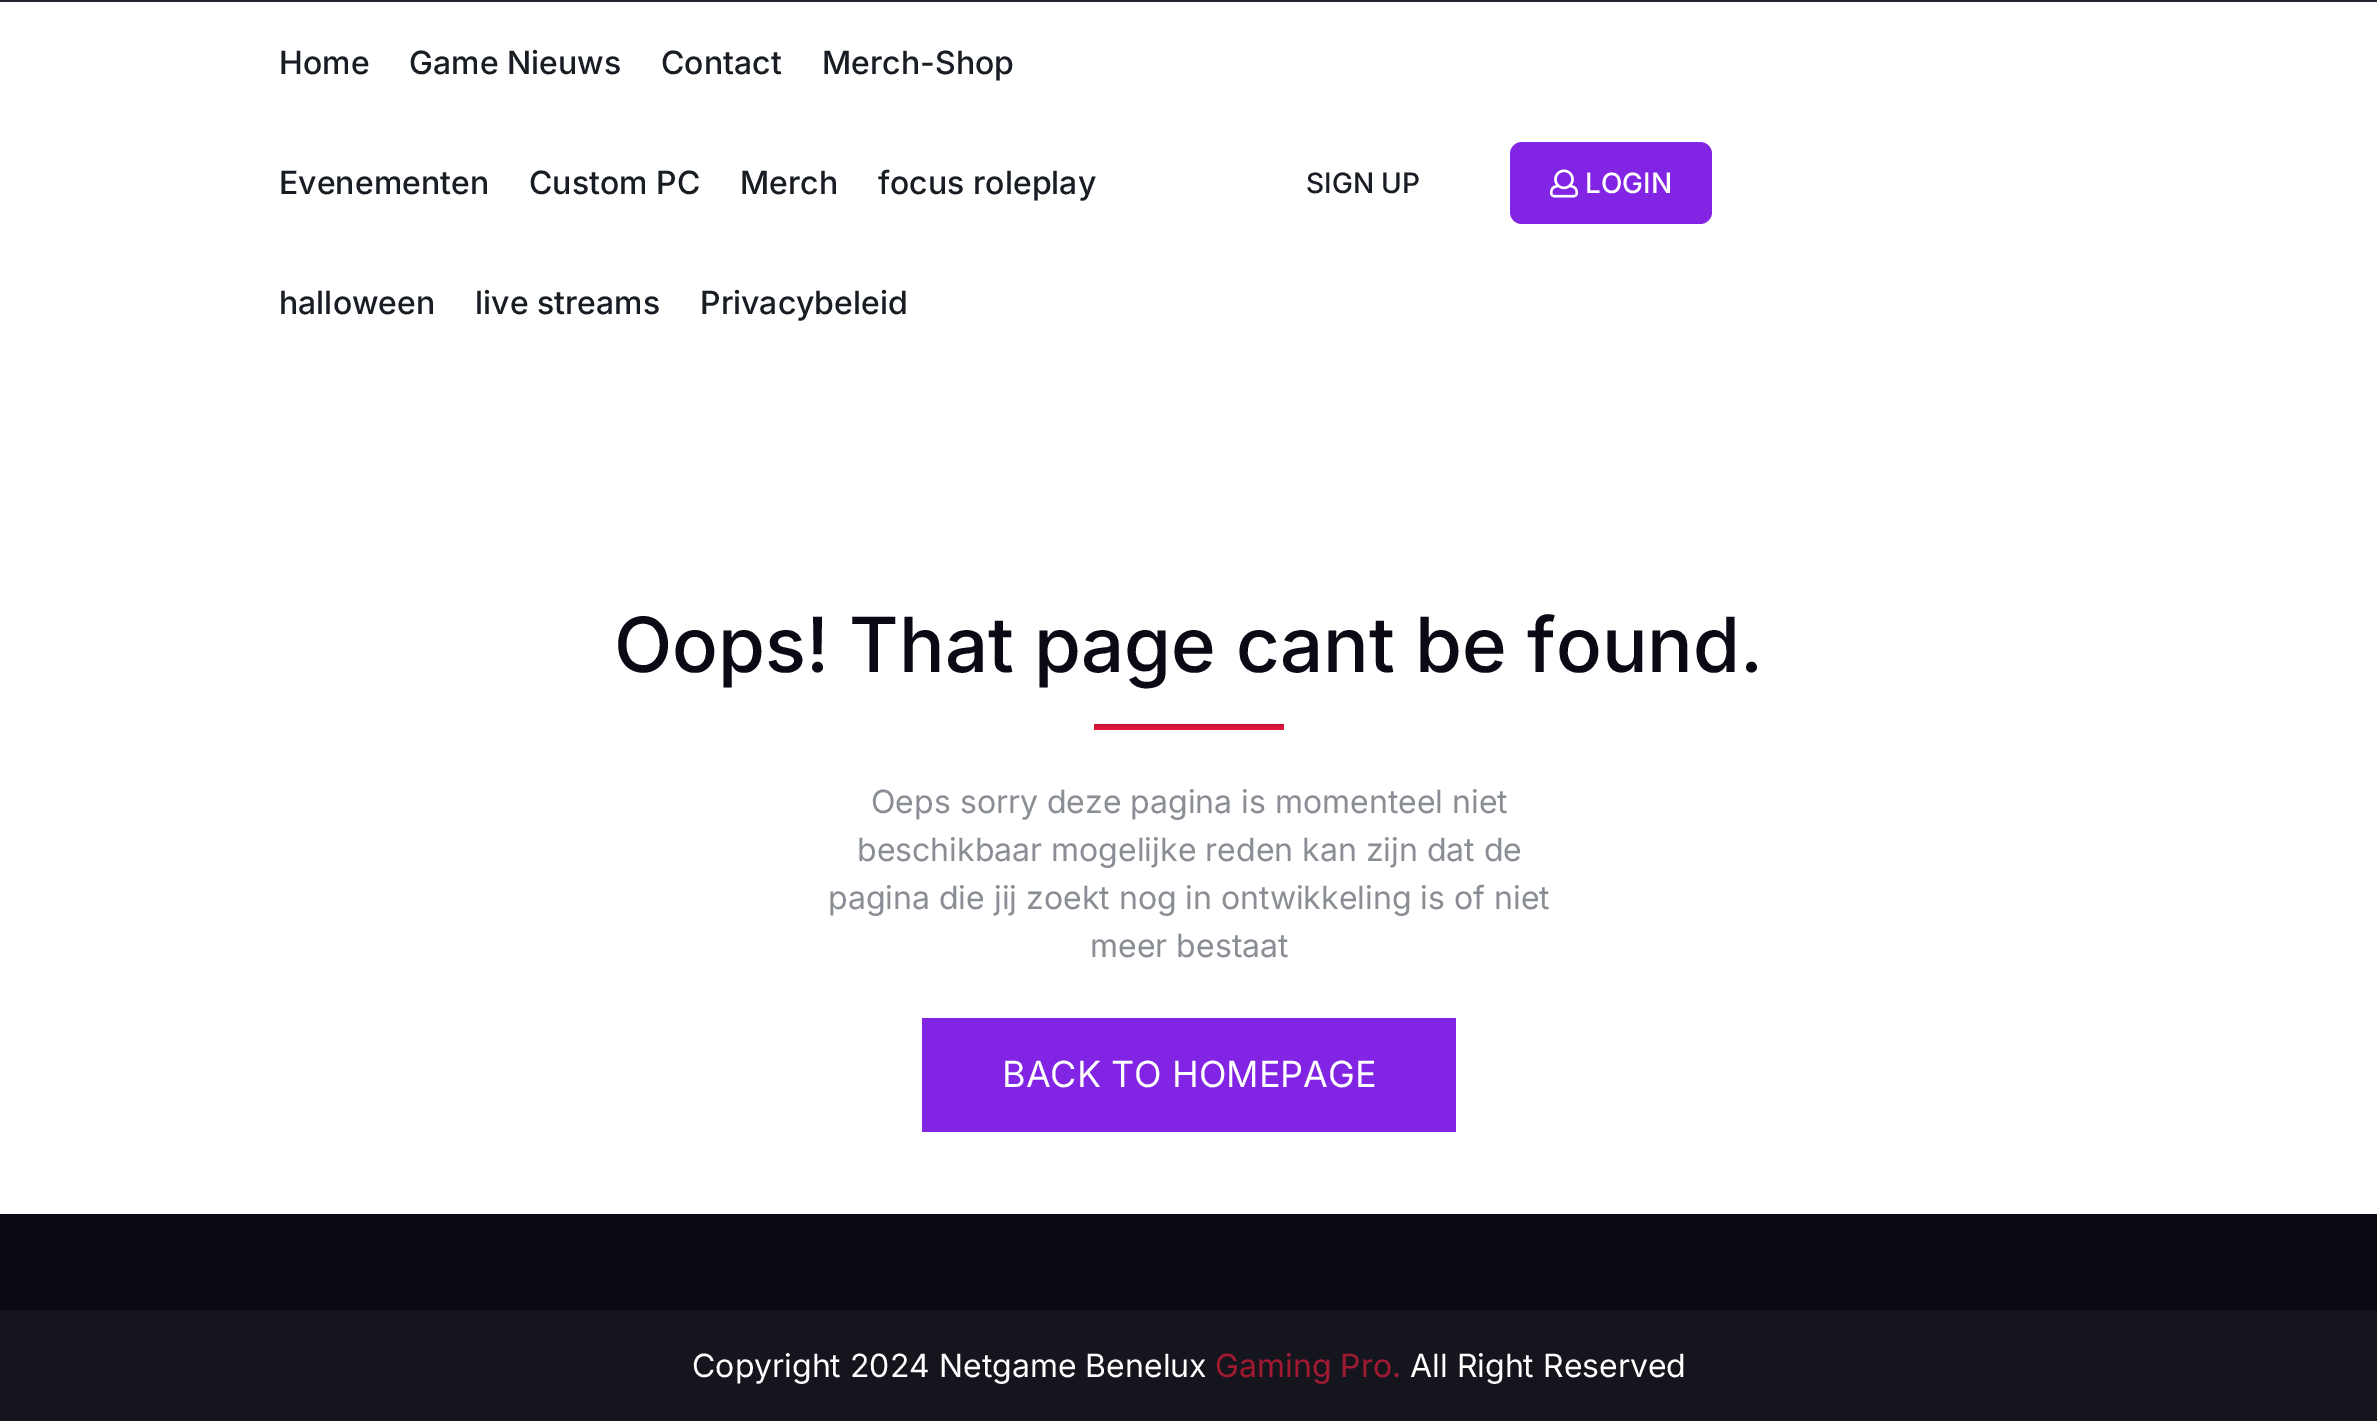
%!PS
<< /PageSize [2377 1421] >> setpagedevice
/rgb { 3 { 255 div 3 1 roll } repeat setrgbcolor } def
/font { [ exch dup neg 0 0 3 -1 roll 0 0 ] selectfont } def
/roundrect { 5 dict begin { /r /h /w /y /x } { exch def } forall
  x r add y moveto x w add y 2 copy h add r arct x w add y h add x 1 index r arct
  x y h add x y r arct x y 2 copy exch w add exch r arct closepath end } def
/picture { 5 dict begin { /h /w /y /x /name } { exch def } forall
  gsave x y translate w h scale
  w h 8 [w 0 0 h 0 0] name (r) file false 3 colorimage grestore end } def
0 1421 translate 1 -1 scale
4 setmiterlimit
255 255 255 rgb
0 0 2377 1421 rectfill
34 35 44 rgb
0 0 2377 2 rectfill
130 36 227 rgb
1510 142 202 82 12 roundrect fill
(img/1.rgb) 1550 169 28 29 picture
[
  [1094 726 190 4 221 22 59]
  [1094 724 190 2 199 20 53]
  [922 1018 534 114 130 36 227]
  [0 1214 2377 96 9 10 20]
  [0 1310 2377 111 20 21 29]
] { aload pop rgb rectfill } forall
/Inter-Medium 32 font
24 28 35 rgb
[
  [(Home) 279 74]
  [(Game Nieuws) 409 74]
  [(Contact) 661 74]
  [(Merch-Shop) 822 74]
  [(Evenementen) 279 194]
  [(Custom PC) 529 194]
  [(Merch) 740 194]
  [(focus roleplay) 878 194]
  [(halloween) 279 314]
  [(live streams) 475 314]
  [(Privacybeleid) 700 314]
] { aload pop moveto show } forall
/Inter-Medium 28 font
1306 193 moveto (SIGN UP) show
255 255 255 rgb
1585 193 moveto (LOGIN) show
/Inter-Medium 76 font
9 10 20 rgb
614 672 moveto (Oops! That page cant be found.) show
/Inter-Regular 32 font
137 141 148 rgb
[
  [(Oeps sorry deze pagina is momenteel niet) 871 813]
  [(beschikbaar mogelijke reden kan zijn dat de) 857 861]
  [(pagina die jij zoekt nog in ontwikkeling is of niet) 828 909]
  [(meer bestaat) 1090 957]
] { aload pop moveto show } forall
/Inter-Regular 36 font
255 255 255 rgb
1002 1087 moveto (BACK TO HOMEPAGE) show
/Inter-Regular 32 font
692 1377 moveto (Copyright 2024 Netgame Benelux) show
161 26 50 rgb
1215 1377 moveto (Gaming Pro.) show
255 255 255 rgb
1410 1377 moveto (All Right Reserved) show
showpage
